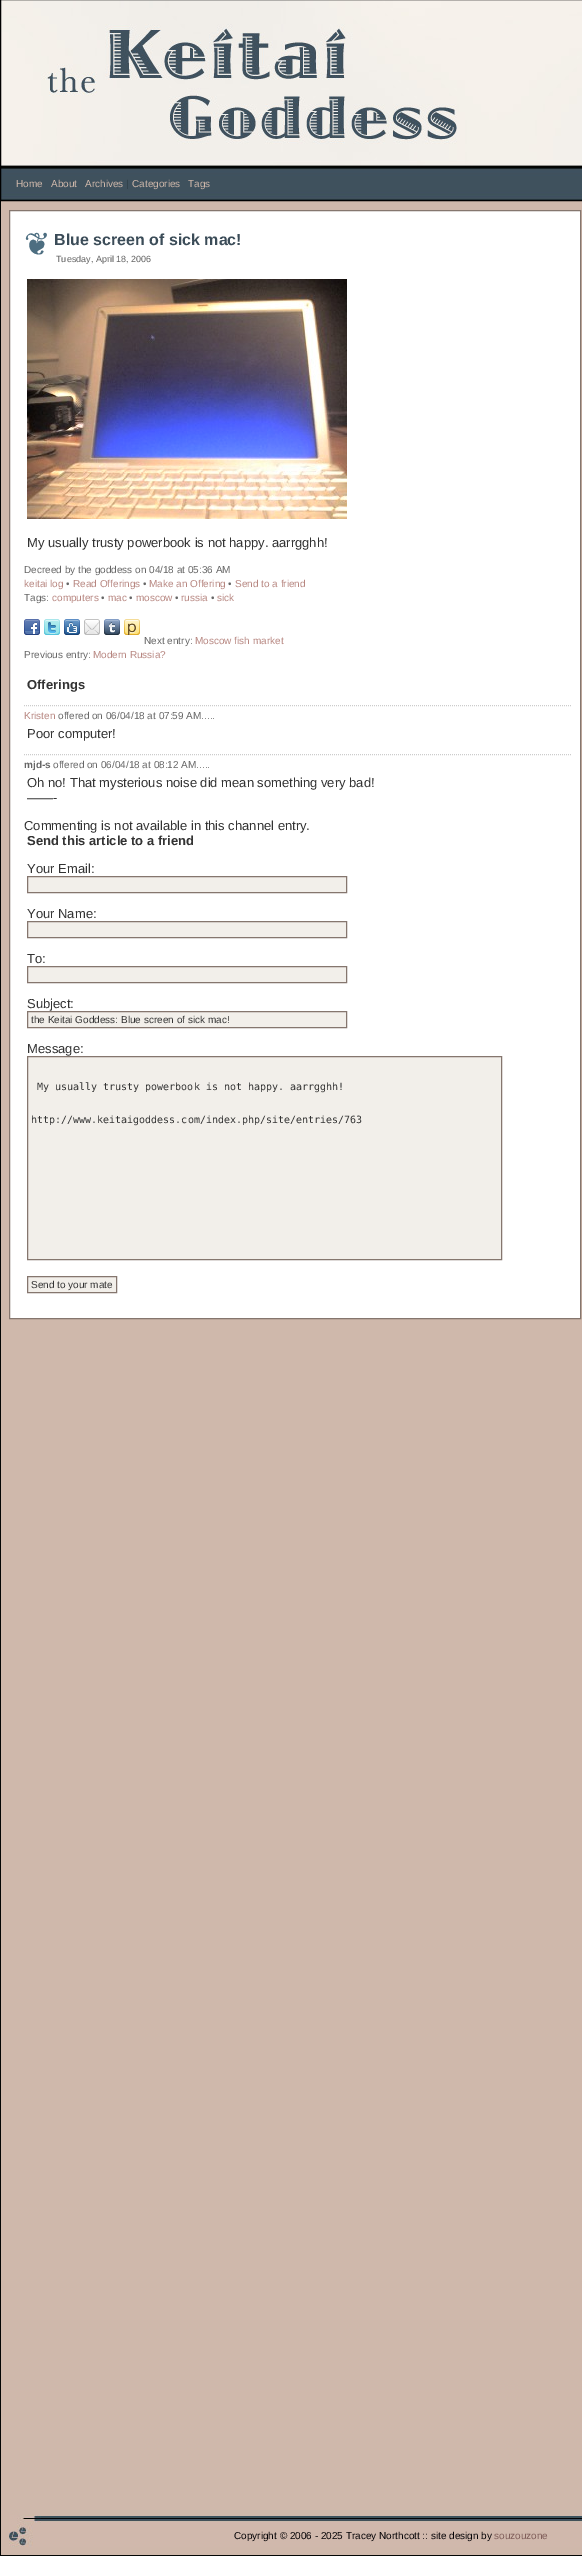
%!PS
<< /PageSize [582 2556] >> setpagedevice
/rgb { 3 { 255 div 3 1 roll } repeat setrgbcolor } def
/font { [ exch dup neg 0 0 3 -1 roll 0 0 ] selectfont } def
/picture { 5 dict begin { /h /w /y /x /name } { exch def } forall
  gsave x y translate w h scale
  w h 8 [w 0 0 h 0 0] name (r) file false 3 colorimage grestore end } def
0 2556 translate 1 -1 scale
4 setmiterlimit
207 184 171 rgb
0 0 582 2556 rectfill
3 5 4 rgb
0 201 1 2355 rectfill
(img/1.rgb) 1 0 581 200 picture
0 0 0 rgb
0.5 -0.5 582 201 rectstroke
255 255 255 rgb
9.5 210.5 moveto 580.5 210.5 lineto 580.5 1318.5 lineto 9.5 1318.5 lineto closepath gsave fill grestore
133 118 110 rgb
stroke
(img/2.rgb) 25 232 22 23 picture
(img/3.rgb) 27 279 320 240 picture
(img/4.rgb) 24 619 16 16 picture
(img/5.rgb) 44 619 16 16 picture
(img/6.rgb) 64 619 16 16 picture
(img/7.rgb) 84 619 16 16 picture
(img/8.rgb) 104 619 16 16 picture
(img/9.rgb) 124 619 16 16 picture
204 204 204 rgb
[1 1] 0 setdash
24 705.5 moveto 572 705.5 lineto stroke
24 754.5 moveto 572 754.5 lineto stroke
242 239 234 rgb
27.5 876.5 moveto 346.5 876.5 lineto 346.5 892.5 lineto 27.5 892.5 lineto closepath gsave fill grestore
133 118 110 rgb
[] 0 setdash
stroke
242 239 234 rgb
27.5 921.5 moveto 346.5 921.5 lineto 346.5 937.5 lineto 27.5 937.5 lineto closepath gsave fill grestore
133 118 110 rgb
stroke
242 239 234 rgb
27.5 966.5 moveto 346.5 966.5 lineto 346.5 982.5 lineto 27.5 982.5 lineto closepath gsave fill grestore
133 118 110 rgb
stroke
242 239 234 rgb
27.5 1011.5 moveto 346.5 1011.5 lineto 346.5 1027.5 lineto 27.5 1027.5 lineto closepath gsave fill grestore
133 118 110 rgb
stroke
242 239 234 rgb
27.5 1056.5 moveto 501.5 1056.5 lineto 501.5 1259.5 lineto 27.5 1259.5 lineto closepath gsave fill grestore
133 118 110 rgb
stroke
242 239 234 rgb
27.5 1276.5 moveto 116.5 1276.5 lineto 116.5 1292.5 lineto 27.5 1292.5 lineto closepath gsave fill grestore
133 118 110 rgb
stroke
(img/10.rgb) 9 2515 573 32 picture
3 5 4 rgb
1 2555 581 1 rectfill
/LiberationSans-Regular 10 font
207 184 171 rgb
[
  [(Home) 16 187]
  [(About) 51 187]
  [(Archives) 85 187]
] { aload pop moveto show } forall
48 62 71 rgb
126 187 moveto (|) show
207 184 171 rgb
132 187 moveto (Categories) show
188 187 moveto (Tags) show
/LiberationSans-Bold 16 font
59 76 88 rgb
54 245 moveto (Blue screen of sick mac!) show
/LiberationSans-Regular 9 font
102 102 102 rgb
56 262 moveto (Tuesday, April 18, 2006) show
/LiberationSans-Regular 13 font
51 51 51 rgb
27 547 moveto (My usually trusty powerbook is not happy. aarrgghh!) show
/LiberationSans-Regular 10 font
102 102 102 rgb
24 573 moveto (Decreed by the goddess on 04/18 at 05:36 AM) show
183 134 128 rgb
24 587 moveto (keitai log) show
102 102 102 rgb
66 587 moveto (•) show
183 134 128 rgb
73 587 moveto (Read Offerings) show
102 102 102 rgb
143 587 moveto (•) show
183 134 128 rgb
149 587 moveto (Make an Offering) show
102 102 102 rgb
228 587 moveto (•) show
183 134 128 rgb
235 587 moveto (Send to a friend) show
102 102 102 rgb
24 601 moveto (Tags:) show
183 134 128 rgb
52 601 moveto (computers) show
102 102 102 rgb
101 601 moveto (•) show
183 134 128 rgb
108 601 moveto (mac) show
102 102 102 rgb
129 601 moveto (•) show
183 134 128 rgb
136 601 moveto (moscow) show
102 102 102 rgb
175 601 moveto (•) show
183 134 128 rgb
181 601 moveto (russia) show
102 102 102 rgb
211 601 moveto (•) show
183 134 128 rgb
217 601 moveto (sick) show
102 102 102 rgb
144 644 moveto (Next entry:) show
183 134 128 rgb
195 644 moveto (Moscow fish market) show
102 102 102 rgb
24 658 moveto (Previous entry:) show
183 134 128 rgb
93 658 moveto (Modern Russia?) show
/LiberationSans-Bold 13 font
51 51 51 rgb
27 689 moveto (Offerings) show
/LiberationSans-Regular 10 font
183 134 128 rgb
24 719 moveto (Kristen) show
102 102 102 rgb
58 719 moveto (offered on 06/04/18 at 07:59 AM.....) show
/LiberationSans-Regular 13 font
51 51 51 rgb
27 738 moveto (Poor computer!) show
/LiberationSans-Bold 10 font
102 102 102 rgb
24 768 moveto (mjd-s) show
/LiberationSans-Regular 10 font
53 768 moveto (offered on 06/04/18 at 08:12 AM.....) show
/LiberationSans-Regular 13 font
51 51 51 rgb
[
  [(Oh no! That mysterious noise did mean something very bad!) 27 787]
  [(——-) 27 802]
  [(Commenting is not available in this channel entry.) 24 830]
] { aload pop moveto show } forall
/LiberationSans-Bold 13 font
27 845 moveto (Send this article to a friend) show
/LiberationSans-Regular 13 font
[
  [(Your Email:) 27 873]
  [(Your Name:) 27 918]
  [(To:) 27 963]
  [(Subject:) 27 1008]
] { aload pop moveto show } forall
/LiberationSans-Regular 10 font
31 1023 moveto (the Keitai Goddess: Blue screen of sick mac!) show
/LiberationSans-Regular 13 font
27 1053 moveto (Message:) show
/DejaVuSansMono-Regular 10 font
37 1090 moveto (My usually trusty powerbook is not happy. aarrgghh!) show
31 1123 moveto (http://www.keitaigoddess.com/index.php/site/entries/763) show
/LiberationSans-Regular 10 font
31 1288 moveto (Send to your mate) show
5 3 6 rgb
234 2539 moveto (Copyright © 2006 - 2025 Tracey Northcott :: site design by) show
128 94 90 rgb
494 2539 moveto (souzouzone) show
showpage
